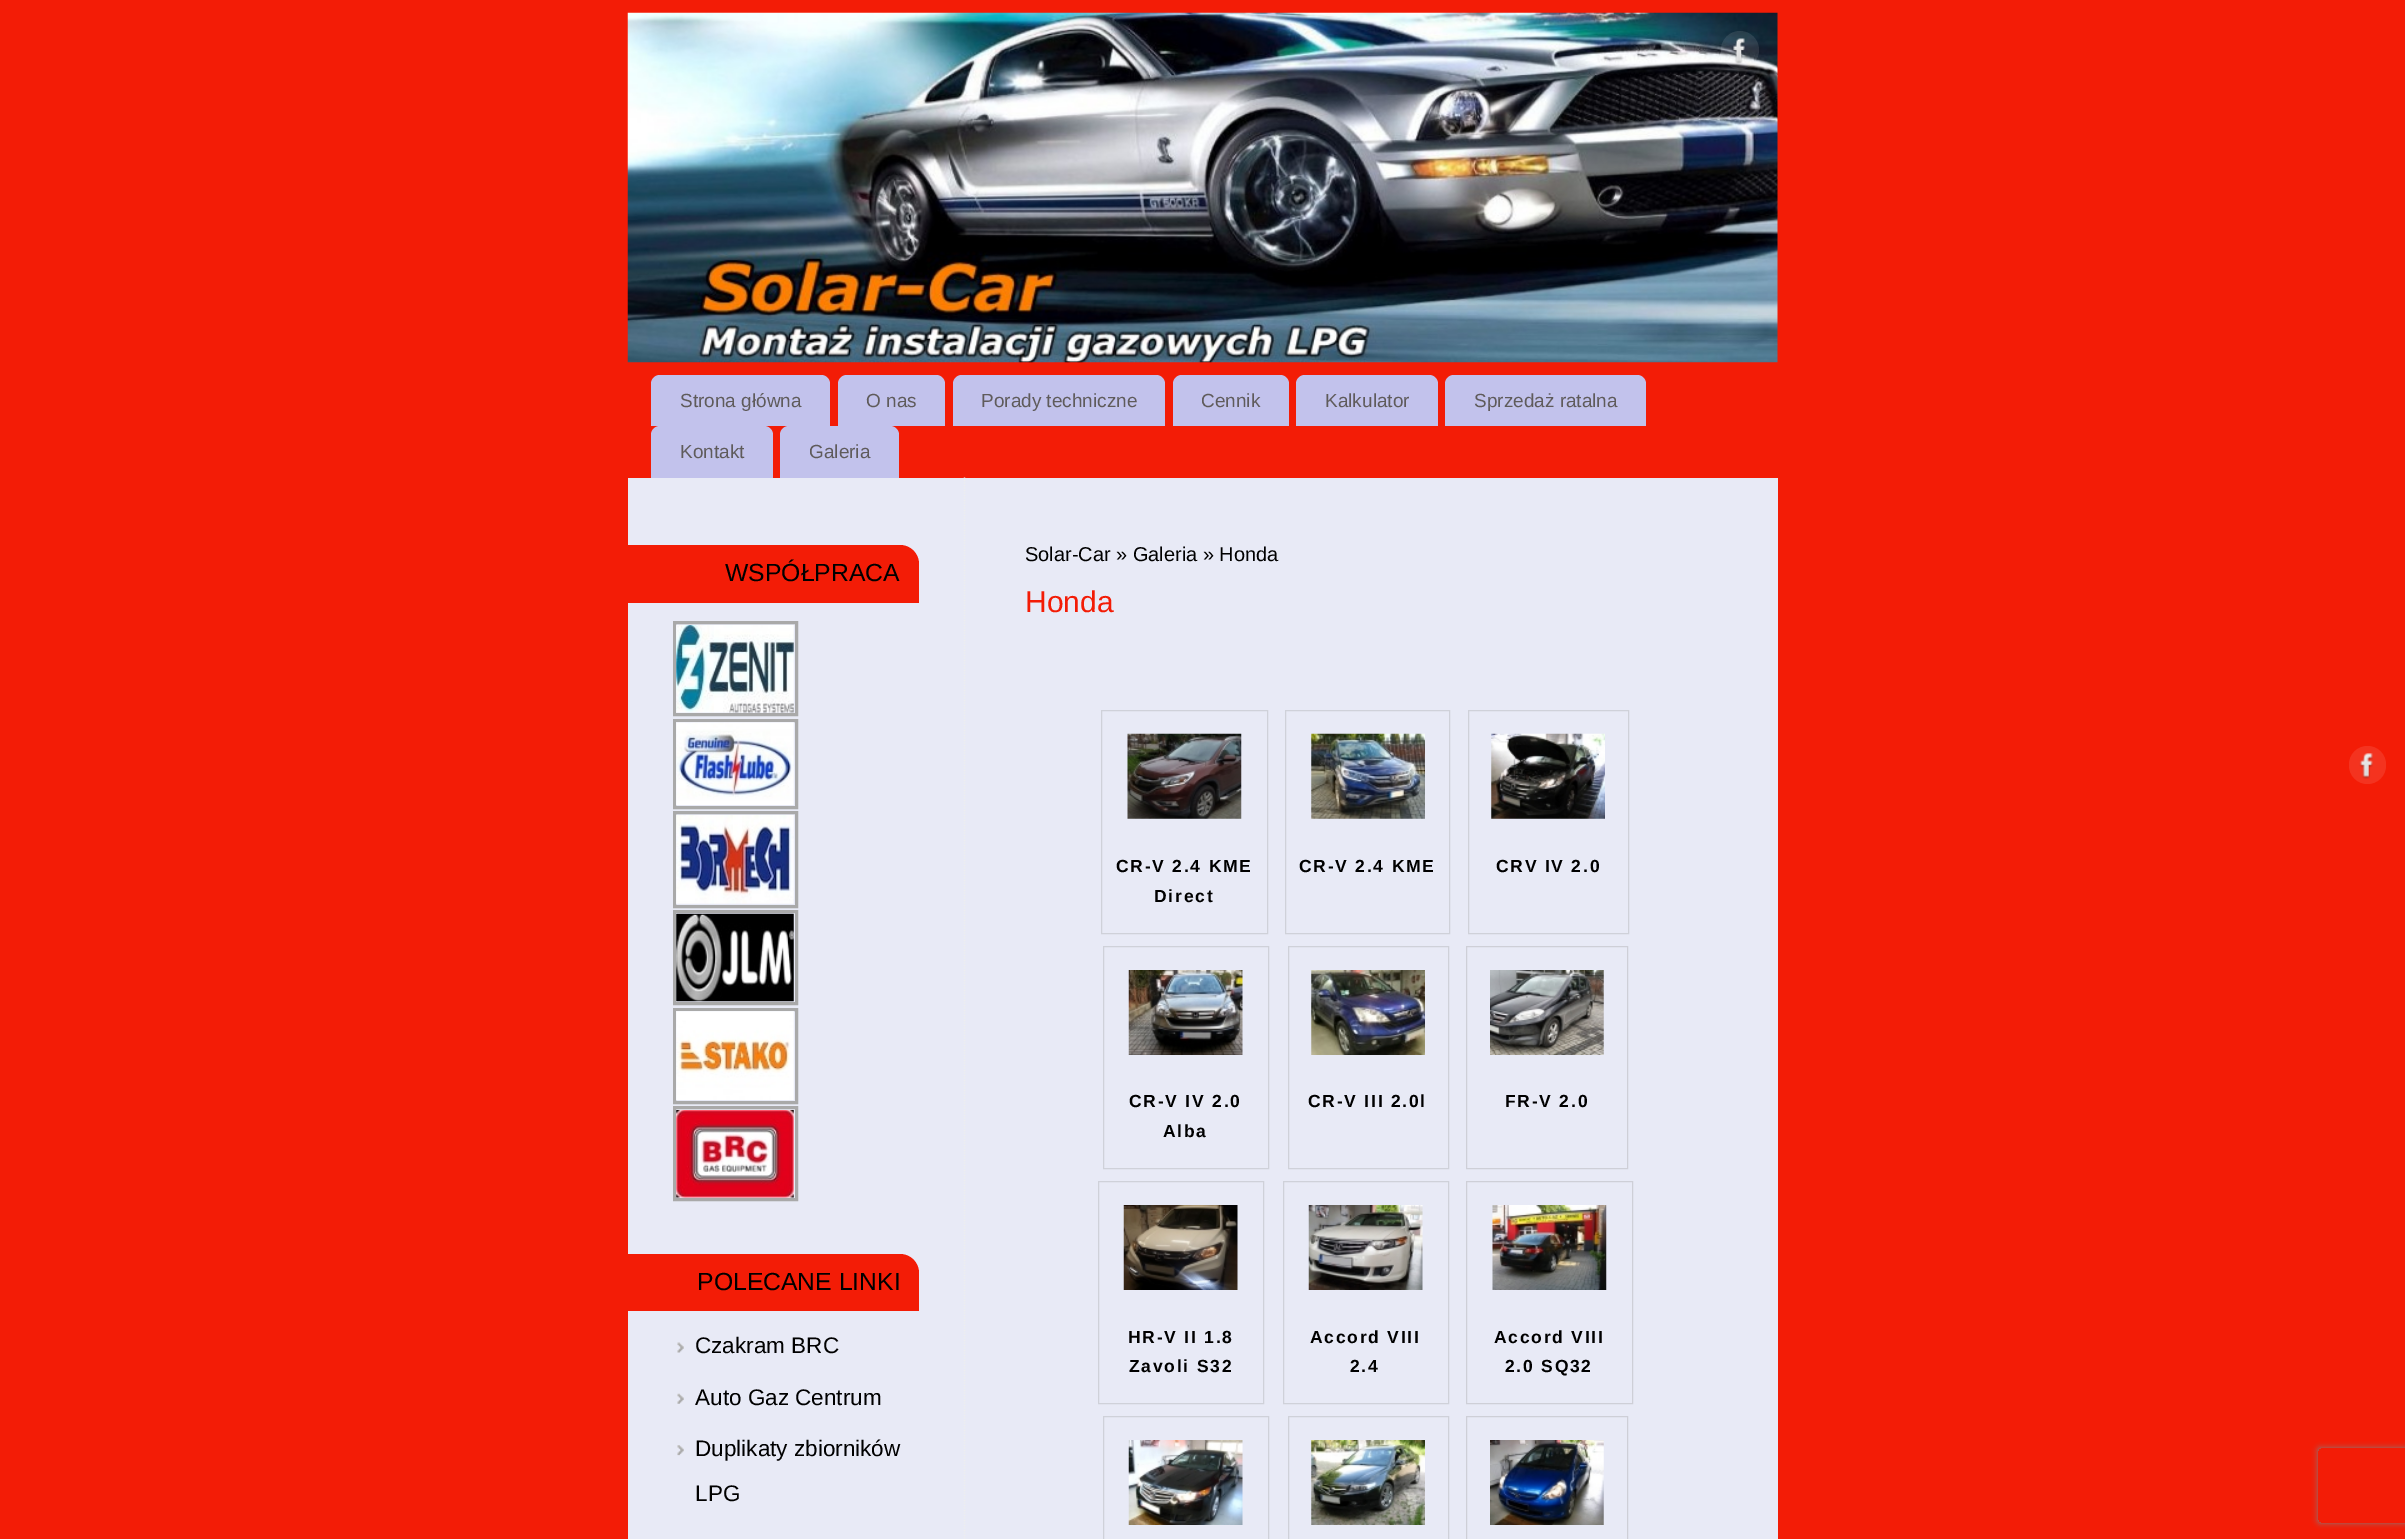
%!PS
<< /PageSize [2405 1539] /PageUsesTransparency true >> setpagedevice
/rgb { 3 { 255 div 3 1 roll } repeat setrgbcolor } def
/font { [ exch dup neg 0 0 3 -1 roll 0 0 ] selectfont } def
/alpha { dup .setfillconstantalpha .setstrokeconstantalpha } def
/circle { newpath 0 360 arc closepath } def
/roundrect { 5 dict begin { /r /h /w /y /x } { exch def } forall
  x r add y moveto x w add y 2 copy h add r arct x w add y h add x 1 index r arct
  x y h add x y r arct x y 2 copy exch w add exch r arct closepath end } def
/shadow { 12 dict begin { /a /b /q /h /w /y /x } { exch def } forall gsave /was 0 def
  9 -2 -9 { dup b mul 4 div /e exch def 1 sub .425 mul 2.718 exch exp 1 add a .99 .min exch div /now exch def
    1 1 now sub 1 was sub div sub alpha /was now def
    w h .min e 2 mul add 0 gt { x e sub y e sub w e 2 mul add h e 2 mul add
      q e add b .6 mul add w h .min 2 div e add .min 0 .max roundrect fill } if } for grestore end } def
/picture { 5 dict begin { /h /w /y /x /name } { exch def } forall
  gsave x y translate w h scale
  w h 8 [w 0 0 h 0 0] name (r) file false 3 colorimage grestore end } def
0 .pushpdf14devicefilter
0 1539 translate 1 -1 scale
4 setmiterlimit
243 28 6 rgb
0 0 2405 1539 rectfill
(img/1.rgb) 627 12 1151 351 picture
0.1 alpha
255 255 255 rgb
1740 50 19 circle fill
1 alpha
(img/2.rgb) 1732 38 13 26 picture
194 194 236 rgb
660 375 moveto 821 375 lineto 826 375 830 379 830 384 curveto 830 426 lineto 651 426 lineto 651 384 lineto 651 379 655 375 660 375 curveto closepath fill
847 375 moveto 936 375 lineto 941 375 945 379 945 384 curveto 945 426 lineto 838 426 lineto 838 384 lineto 838 379 842 375 847 375 curveto closepath fill
962 375 moveto 1156 375 lineto 1161 375 1165 379 1165 384 curveto 1165 426 lineto 953 426 lineto 953 384 lineto 953 379 957 375 962 375 curveto closepath fill
1182 375 moveto 1280 375 lineto 1285 375 1289 379 1289 384 curveto 1289 426 lineto 1173 426 lineto 1173 384 lineto 1173 379 1177 375 1182 375 curveto closepath fill
1305 375 moveto 1429 375 lineto 1434 375 1438 379 1438 384 curveto 1438 426 lineto 1296 426 lineto 1296 384 lineto 1296 379 1300 375 1305 375 curveto closepath fill
1454 375 moveto 1637 375 lineto 1642 375 1646 379 1646 384 curveto 1646 426 lineto 1445 426 lineto 1445 384 lineto 1445 379 1449 375 1454 375 curveto closepath fill
660 426 moveto 764 426 lineto 769 426 773 430 773 435 curveto 773 478 lineto 651 478 lineto 651 435 lineto 651 430 655 426 660 426 curveto closepath fill
789 426 moveto 890 426 lineto 895 426 899 430 899 435 curveto 899 478 lineto 780 478 lineto 780 435 lineto 780 430 784 426 789 426 curveto closepath fill
232 234 246 rgb
628 478 1150 1061 rectfill
238 238 238 rgb
1.2 setlinewidth
[1.25 1.25] 0 setdash
964.5 477.5 moveto 964.5 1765 lineto stroke
243 28 6 rgb
628 545 moveto 900 545 lineto 910.5 545 919 553.5 919 564 curveto 919 603 lineto 628 603 lineto closepath fill
169 169 169 rgb
3 setlinewidth
[] 0 setdash
674.5 622.5 122 92 rectstroke
(img/3.rgb) 676 625 118 88 picture
674.5 720.5 122 87 rectstroke
(img/4.rgb) 676 722 118 83 picture
674.5 812.5 122 94 rectstroke
(img/5.rgb) 676 815 118 89 picture
674.5 911.5 122 92 rectstroke
(img/6.rgb) 676 913 118 89 picture
674.5 1009.5 122 93 rectstroke
(img/7.rgb) 676 1011 118 89 picture
674.5 1107.5 122 92 rectstroke
(img/8.rgb) 676 1110 118 88 picture
243 28 6 rgb
628 1254 moveto 900 1254 lineto 910.5 1254 919 1262.5 919 1273 curveto 919 1311 lineto 628 1311 lineto closepath fill
(img/9.rgb) 677 1342 7 11 picture
(img/10.rgb) 677 1393 7 11 picture
(img/11.rgb) 677 1445 7 11 picture
0.3 alpha
150 150 150 rgb
1 setlinewidth
1101.5 710.5 166 223 rectstroke
1 alpha
(img/12.rgb) 1127 733 115 86 picture
207 209 217 rgb
1285.5 710.5 164 223 rectstroke
(img/13.rgb) 1311 733 114 86 picture
0.3 alpha
150 150 150 rgb
1468.5 710.5 160 223 rectstroke
1 alpha
(img/14.rgb) 1491 733 114 86 picture
0.3 alpha
1103.5 946.5 165 222 rectstroke
1 alpha
(img/15.rgb) 1128 970 115 85 picture
0.3 alpha
1288.5 946.5 160 222 rectstroke
1 alpha
(img/16.rgb) 1311 970 114 85 picture
206 207 215 rgb
1466.5 946.5 161 222 rectstroke
(img/17.rgb) 1490 970 114 85 picture
0.3 alpha
150 150 150 rgb
1098.5 1181.5 165 222 rectstroke
1 alpha
(img/18.rgb) 1123 1205 115 85 picture
0.3 alpha
1283.5 1181.5 165 222 rectstroke
1 alpha
(img/19.rgb) 1308 1205 115 85 picture
206 207 215 rgb
1466.5 1181.5 166 222 rectstroke
(img/20.rgb) 1492 1205 115 85 picture
0.3 alpha
150 150 150 rgb
1103.5 1416.5 165 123 rectstroke
1 alpha
(img/21.rgb) 1128 1440 115 85 picture
0.3 alpha
1288.5 1416.5 160 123 rectstroke
1 alpha
(img/22.rgb) 1311 1440 114 85 picture
206 207 215 rgb
1466.5 1416.5 161 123 rectstroke
(img/23.rgb) 1490 1440 114 85 picture
244 51 31 rgb
2349 746 37 38 18.5 roundrect fill
(img/24.rgb) 2359 753 14 26 picture
gsave
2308 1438 moveto 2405 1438 lineto 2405 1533 lineto 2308 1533 lineto closepath 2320.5 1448 moveto 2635.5 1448 lineto 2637 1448 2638 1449 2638 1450.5 curveto 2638 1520.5 lineto 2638 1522 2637 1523 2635.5 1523 curveto 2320.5 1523 lineto 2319 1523 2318 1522 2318 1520.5 curveto 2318 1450.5 lineto 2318 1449 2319 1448 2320.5 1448 curveto closepath eoclip newpath
128 128 128 rgb
2318 1448 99 75 2.5 3 1 shadow
grestore
/LiberationSans-Regular 19 font
95 91 91 rgb
[
  [(Strona główna) 680 407]
  [(O nas) 866 407]
  [(Porady techniczne) 981 407]
  [(Cennik) 1201 407]
  [(Kalkulator) 1325 407]
  [(Sprzedaż ratalna) 1474 407]
  [(Kontakt) 680 458]
  [(Galeria) 809 458]
] { aload pop moveto show } forall
/LiberationSans-Regular 24.75 font
0 0 0 rgb
725 581 moveto (WSPÓŁPRACA) show
697 1290 moveto (POLECANE LINKI) show
/LiberationSans-Regular 22.5 font
[
  [(Czakram BRC) 695 1353]
  [(Auto Gaz Centrum) 695 1405]
  [(Duplikaty zbiorników) 695 1456]
  [(LPG) 695 1501]
] { aload pop moveto show } forall
/LiberationSans-Regular 20 font
1025 561 moveto (Solar-Car » Galeria » Honda) show
/LiberationSans-Regular 30 font
243 28 6 rgb
1025 612 moveto (Honda) show
/LiberationSans-Bold 17.5 font
0 0 0 rgb
1116 872 moveto 1.75 0 (CR-V 2.4 KME) ashow
1154 902 moveto 1.75 0 (Direct) ashow
1299 872 moveto 1.75 0 (CR-V 2.4 KME) ashow
1496 872 moveto 1.75 0 (CRV IV 2.0) ashow
1129 1107 moveto 1.75 0 (CR-V IV 2.0) ashow
1163 1137 moveto 1.75 0 (Alba) ashow
1308 1107 moveto 1.75 0 (CR-V III 2.0l) ashow
1505 1107 moveto 1.75 0 (FR-V 2.0) ashow
1128 1343 moveto 1.75 0 (HR-V II 1.8) ashow
1129 1372 moveto 1.75 0 (Zavoli S32) ashow
1310 1343 moveto 1.75 0 (Accord VIII) ashow
1350 1372 moveto 1.75 0 (2.4) ashow
1494 1343 moveto 1.75 0 (Accord VIII) ashow
1505 1372 moveto 1.75 0 (2.0 SQ32) ashow
.poppdf14devicefilter showpage
